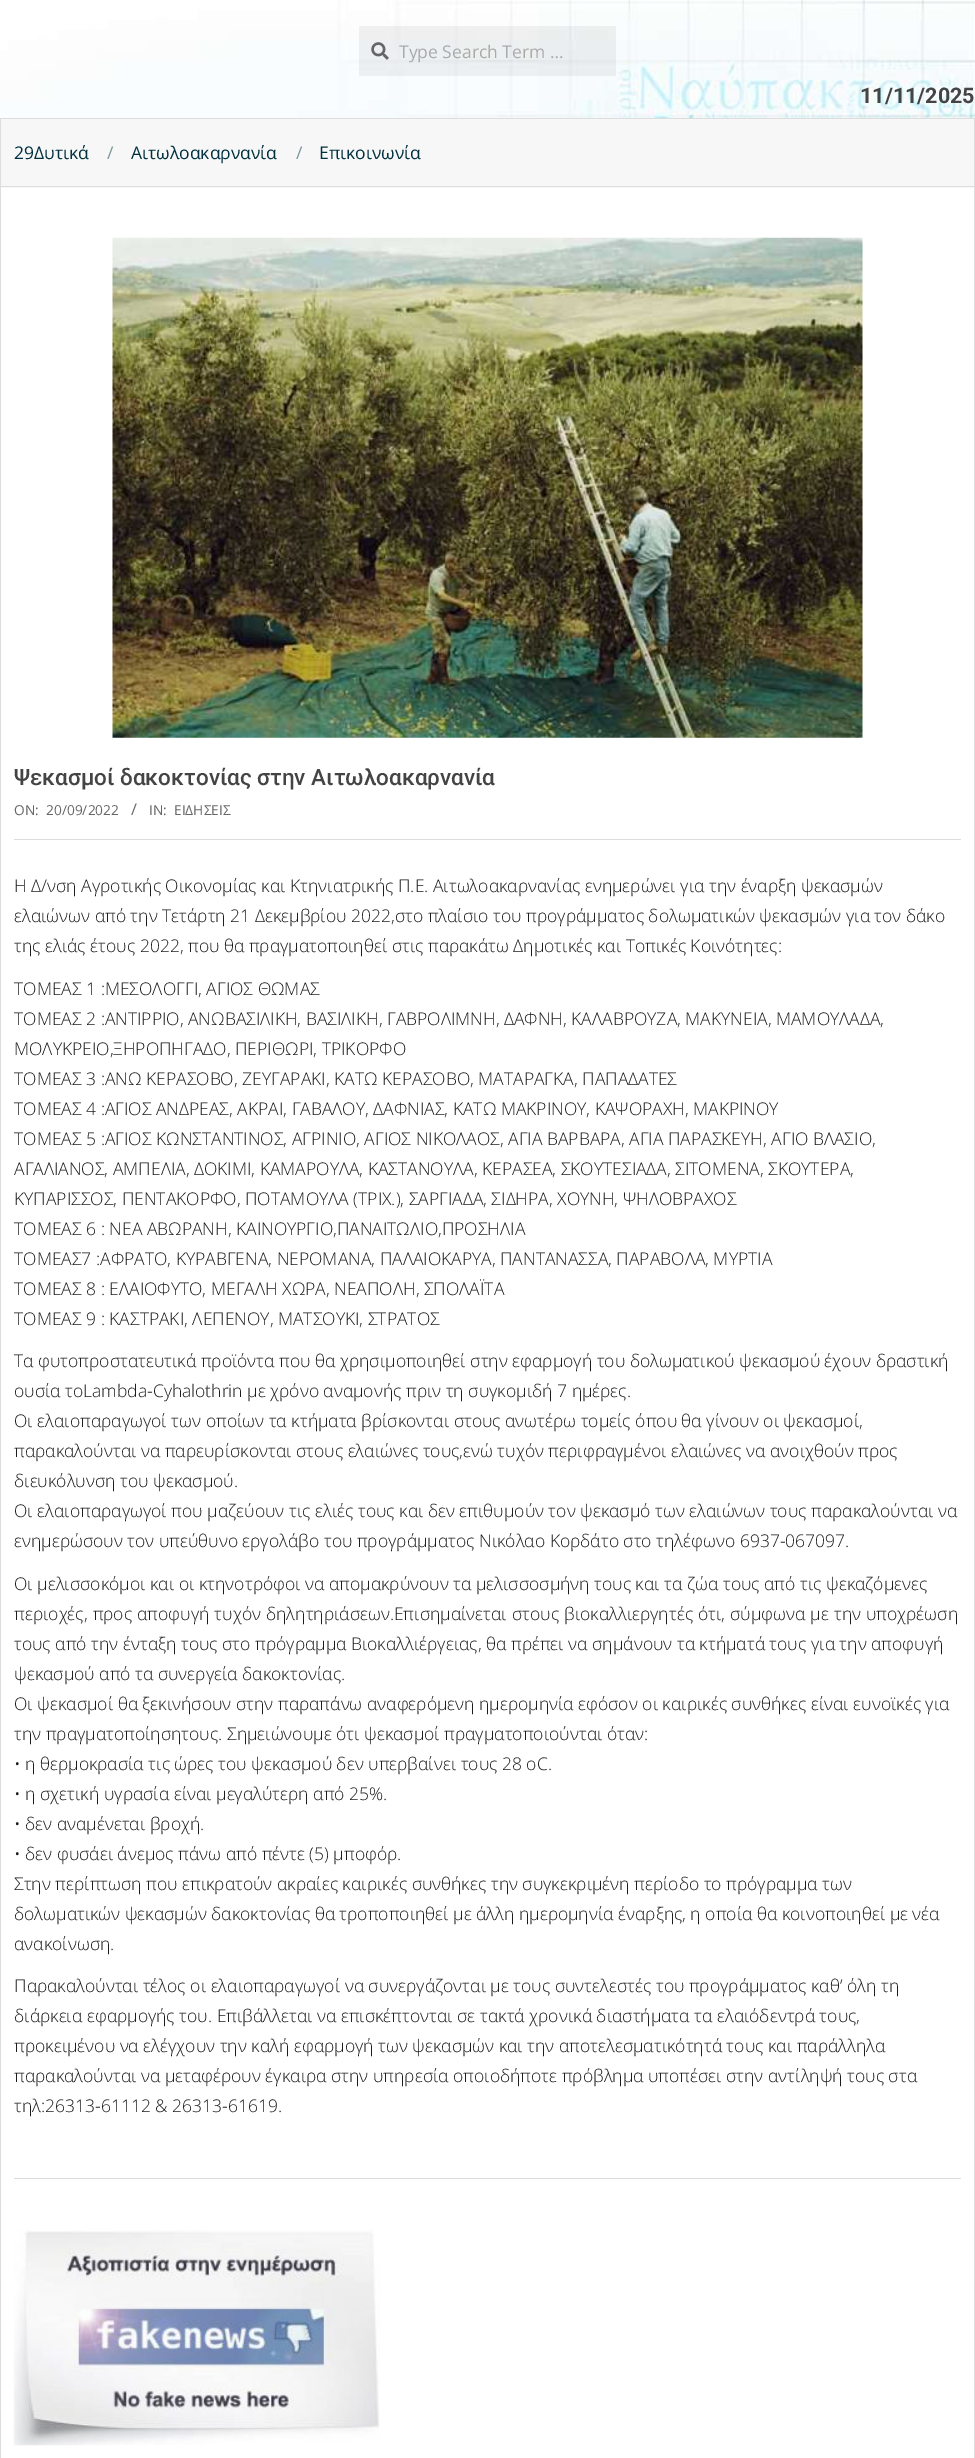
%!PS
<< /PageSize [975 2458] /PageUsesTransparency true >> setpagedevice
/rgb { 3 { 255 div 3 1 roll } repeat setrgbcolor } def
/font { [ exch dup neg 0 0 3 -1 roll 0 0 ] selectfont } def
/alpha { dup .setfillconstantalpha .setstrokeconstantalpha } def
/picture { 5 dict begin { /h /w /y /x /name } { exch def } forall
  gsave x y translate w h scale
  w h 8 [w 0 0 h 0 0] name (r) file false 3 colorimage grestore end } def
0 .pushpdf14devicefilter
0 2458 translate 1 -1 scale
4 setmiterlimit
255 255 255 rgb
0 0 975 2458 rectfill
(img/1.rgb) 0 0 975 118 picture
221 221 221 rgb
0 118 975 1 rectfill
0.05 alpha
0 0 0 rgb
359 26 257 50 rectfill
1 alpha
(img/2.rgb) 371 42 18 18 picture
[
  [1 119 973 69 247 247 247]
  [974 119 1 2339 221 221 221]
  [0 186 975 1 221 221 221]
  [0 119 1 2339 221 221 221]
] { aload pop rgb rectfill } forall
(img/3.rgb) 112 237 751 501 picture
14 839 947 1 rectfill
14 2178 947 1 rectfill
(img/4.rgb) 13 2229 367 217 picture
/OpenSans-Regular 17.5 font
169 171 171 rgb
399 58 moveto (Type Search Term …) show
/Roboto-Bold 21.5 font
68 68 68 rgb
860 103 moveto (11/11/2025) show
/OpenSans-Regular 17.5 font
0 48 63 rgb
14 159 moveto (29Δυτικά) show
124 148 155 rgb
107 159 moveto (/) show
0 48 63 rgb
131 159 moveto (Αιτωλοακαρνανία) show
124 148 155 rgb
296 159 moveto (/) show
0 48 63 rgb
319 159 moveto (Επικοινωνία) show
/Roboto-Medium 22.5 font
68 68 68 rgb
14 785 moveto (Ψεκασμοί δακοκτονίας στην Αιτωλοακαρνανία) show
/OpenSans-Regular 13.75 font
102 102 102 rgb
14 815 moveto (ON:) show
46 815 moveto (20/09/2022) show
/OpenSans-Regular 16 font
131 815 moveto (/) show
/OpenSans-Regular 13.75 font
149 815 moveto (IN:) show
174 815 moveto (ΕΙΔΗΣΕΙΣ) show
/OpenSans-Light 17.5 font
28 28 28 rgb
[
  [(Η Δ/νση Αγροτικής Οικονομίας και Κτηνιατρικής Π.Ε. Αιτωλοακαρνανίας ενημερώνει για την έναρξη ψεκασμών) 14 892]
  [(ελαιώνων από την Τετάρτη 21 Δεκεμβρίου 2022,στο πλαίσιο του προγράμματος δολωματικών ψεκασμών για τον δάκο) 14 922]
  [(της ελιάς έτους 2022, που θα πραγματοποιηθεί στις παρακάτω Δημοτικές και Toπικές Κοινότητες:) 14 952]
  [(ΤΟΜΕΑΣ 1 :ΜΕΣΟΛΟΓΓΙ, ΑΓΙΟΣ ΘΩΜΑΣ) 14 995]
  [(ΤΟΜΕΑΣ 2 :ΑΝΤΙΡΡΙΟ, ΑΝΩΒΑΣΙΛΙΚΗ, ΒΑΣΙΛΙΚΗ, ΓΑΒΡΟΛΙΜΝΗ, ΔΑΦΝΗ, ΚΑΛΑΒΡΟΥΖΑ, ΜΑΚΥΝΕΙΑ, ΜΑΜΟΥΛΑΔΑ,) 14 1025]
  [(ΜΟΛΥΚΡΕΙΟ,ΞΗΡΟΠΗΓΑΔΟ, ΠΕΡΙΘΩΡΙ, ΤΡΙΚΟΡΦΟ) 14 1055]
  [(ΤΟΜΕΑΣ 3 :ΑΝΩ ΚΕΡΑΣΟΒΟ, ΖΕΥΓΑΡΑΚΙ, ΚΑΤΩ ΚΕΡΑΣΟΒΟ, ΜΑΤΑΡΑΓΚΑ, ΠΑΠΑΔΑΤΕΣ) 14 1085]
  [(ΤΟΜΕΑΣ 4 :ΑΓΙΟΣ ΑΝΔΡΕΑΣ, ΑΚΡΑΙ, ΓΑΒΑΛΟΥ, ΔΑΦΝΙΑΣ, ΚΑΤΩ ΜΑΚΡΙΝΟΥ, ΚΑΨΟΡΑΧΗ, ΜΑΚΡΙΝΟΥ) 14 1115]
  [(ΤΟΜΕΑΣ 5 :ΑΓΙΟΣ ΚΩΝΣΤΑΝΤΙΝΟΣ, ΑΓΡΙΝΙΟ, ΑΓΙΟΣ ΝΙΚΟΛΑΟΣ, ΑΓΙΑ ΒΑΡΒΑΡΑ, ΑΓΙΑ ΠΑΡΑΣΚΕΥΗ, ΑΓΙΟ ΒΛΑΣΙΟ,) 14 1145]
  [(ΑΓΑΛΙΑΝΟΣ, ΑΜΠΕΛΙΑ, ΔΟΚΙΜΙ, ΚΑΜΑΡΟΥΛΑ, ΚΑΣΤΑΝΟΥΛΑ, ΚΕΡΑΣΕΑ, ΣΚΟΥΤΕΣΙΑΔΑ, ΣΙΤΟΜΕΝΑ, ΣΚΟΥΤΕΡΑ,) 14 1175]
  [(ΚΥΠΑΡΙΣΣΟΣ, ΠΕΝΤΑΚΟΡΦΟ, ΠΟΤΑΜΟΥΛΑ \(ΤΡΙΧ.\), ΣΑΡΓΙΑΔΑ, ΣΙΔΗΡΑ, ΧΟΥΝΗ, ΨΗΛΟΒΡΑΧΟΣ) 14 1205]
  [(ΤΟΜΕΑΣ 6 : ΝΕΑ ΑΒΩΡΑΝΗ, ΚΑΙΝΟΥΡΓΙΟ,ΠΑΝΑΙΤΩΛΙΟ,ΠΡΟΣΗΛΙΑ) 14 1235]
  [(ΤΟΜΕΑΣ7 :ΑΦΡΑΤΟ, ΚΥΡΑΒΓΕΝΑ, ΝΕΡΟΜΑΝΑ, ΠΑΛΑΙΟΚΑΡΥΑ, ΠΑΝΤΑΝΑΣΣΑ, ΠΑΡΑΒΟΛΑ, ΜΥΡΤΙΑ) 14 1265]
  [(ΤΟΜΕΑΣ 8 : ΕΛΑΙΟΦΥΤΟ, ΜΕΓΑΛΗ ΧΩΡΑ, ΝΕΑΠΟΛΗ, ΣΠΟΛΑΪΤΑ) 14 1295]
  [(ΤΟΜΕΑΣ 9 : ΚΑΣΤΡΑΚΙ, ΛΕΠΕΝΟΥ, ΜΑΤΣΟΥΚΙ, ΣΤΡΑΤΟΣ) 14 1325]
  [(Τα φυτοπροστατευτικά προϊόντα που θα χρησιμοποιηθεί στην εφαρμογή του δολωματικού ψεκασμού έχουν δραστική) 14 1367]
  [(ουσία τοLambda-Cyhalothrin με χρόνο αναμονής πριν τη συγκομιδή 7 ημέρες.) 14 1397]
  [(Οι ελαιοπαραγωγοί των οποίων τα κτήματα βρίσκονται στους ανωτέρω τομείς όπου θα γίνουν οι ψεκασμοί,) 14 1427]
  [(παρακαλούνται να παρευρίσκονται στους ελαιώνες τους,ενώ τυχόν περιφραγμένοι ελαιώνες να ανοιχθούν προς) 14 1457]
  [(διευκόλυνση του ψεκασμού.) 14 1487]
  [(Οι ελαιοπαραγωγοί που μαζεύουν τις ελιές τους και δεν επιθυμούν τον ψεκασμό των ελαιώνων τους παρακαλούνται να) 14 1517]
  [(ενημερώσουν τον υπεύθυνο εργολάβο του προγράμματος Νικόλαο Κορδάτο στο τηλέφωνο 6937-067097.) 14 1547]
  [(Οι μελισσοκόμοι και οι κτηνοτρόφοι να απομακρύνουν τα μελισσοσμήνη τους και τα ζώα τους από τις ψεκαζόμενες) 14 1590]
] { aload pop moveto show } forall
14 1620 moveto 0.5 0 32 (περιοχές, προς αποφυγή τυχόν δηλητηριάσεων.Επισημαίνεται στους βιοκαλλιεργητές ότι, σύμφωνα με την υποχρέωση) widthshow
[
  [(τους από την ένταξη τους στο πρόγραμμα Βιοκαλλιέργειας, θα πρέπει να σημάνουν τα κτήματά τους για την αποφυγή) 14 1650]
  [(ψεκασμού από τα συνεργεία δακοκτονίας.) 14 1680]
  [(Οι ψεκασμοί θα ξεκινήσουν στην παραπάνω αναφερόμενη ημερομηνία εφόσον οι καιρικές συνθήκες είναι ευνοϊκές για) 14 1710]
  [(την πραγματοποίησητους. Σημειώνουμε ότι ψεκασμοί πραγματοποιούνται όταν:) 14 1740]
  [(• η θερμοκρασία τις ώρες του ψεκασμού δεν υπερβαίνει τους 28 οC.) 14 1770]
  [(• η σχετική υγρασία είναι μεγαλύτερη από 25%.) 14 1800]
  [(• δεν αναμένεται βροχή.) 14 1830]
  [(• δεν φυσάει άνεμος πάνω από πέντε \(5\) μποφόρ.) 14 1860]
  [(Στην περίπτωση που επικρατούν ακραίες καιρικές συνθήκες την συγκεκριμένη περίοδο το πρόγραμμα των) 14 1890]
  [(δολωματικών ψεκασμών δακοκτονίας θα τροποποιηθεί με άλλη ημερομηνία έναρξης, η οποία θα κοινοποιηθεί με νέα) 14 1920]
  [(ανακοίνωση.) 14 1950]
  [(Παρακαλούνται τέλος οι ελαιοπαραγωγοί να συνεργάζονται με τους συντελεστές του προγράμματος καθ’ όλη τη) 14 1992]
  [(διάρκεια εφαρμογής του. Επιβάλλεται να επισκέπτονται σε τακτά χρονικά διαστήματα τα ελαιόδεντρά τους,) 14 2022]
  [(προκειμένου να ελέγχουν την καλή εφαρμογή των ψεκασμών και την αποτελεσματικότητά τους και παράλληλα) 14 2052]
  [(παρακαλούνται να μεταφέρουν έγκαιρα στην υπηρεσία οποιοδήποτε πρόβλημα υποπέσει στην αντίληψή τους στα) 14 2082]
  [(τηλ:26313-61112 & 26313-61619.) 14 2112]
] { aload pop moveto show } forall
.poppdf14devicefilter showpage
